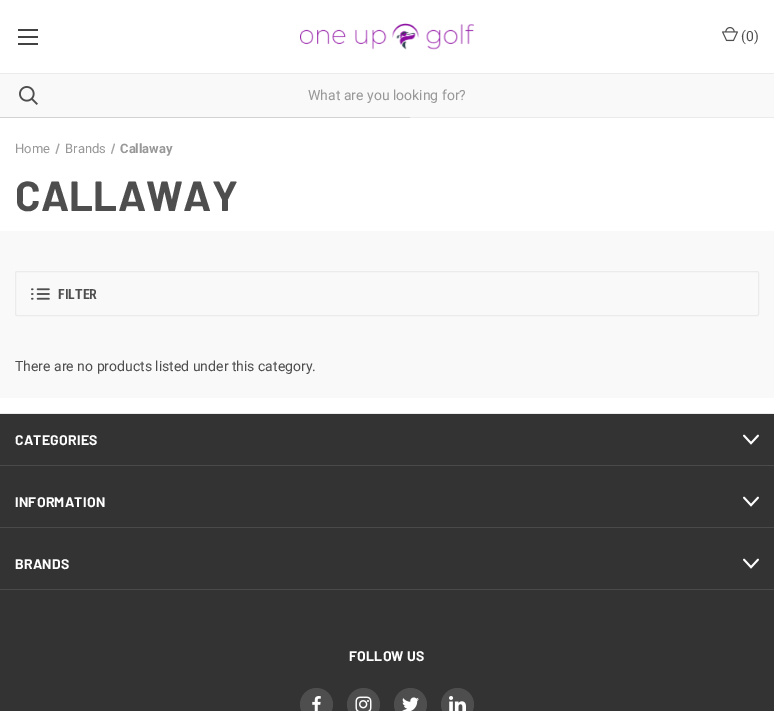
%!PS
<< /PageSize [774 711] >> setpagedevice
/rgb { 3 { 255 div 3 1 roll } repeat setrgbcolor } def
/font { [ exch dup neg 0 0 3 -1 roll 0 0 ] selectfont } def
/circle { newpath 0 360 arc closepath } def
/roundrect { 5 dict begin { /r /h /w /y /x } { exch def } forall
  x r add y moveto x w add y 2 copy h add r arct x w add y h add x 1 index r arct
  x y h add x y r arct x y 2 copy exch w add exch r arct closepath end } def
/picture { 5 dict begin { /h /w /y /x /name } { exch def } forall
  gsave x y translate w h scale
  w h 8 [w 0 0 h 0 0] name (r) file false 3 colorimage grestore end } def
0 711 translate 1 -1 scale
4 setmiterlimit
255 255 255 rgb
0 0 774 711 rectfill
[
  [410 117 364 1 235 235 235]
  [18 36 20 2 66 66 66]
  [18 29 20 2 66 66 66]
  [18 43 20 2 66 66 66]
] { aload pop rgb rectfill } forall
(img/1.rgb) 300 23 174 27 picture
(img/2.rgb) 722 27 16 15 picture
249 249 249 rgb
0 74 774 43 rectfill
(img/3.rgb) 19 86 19 19 picture
[
  [0 73 774 1 235 235 235]
  [0 117 410 1 210 210 210]
  [0 231 774 167 249 249 249]
] { aload pop rgb rectfill } forall
235 235 235 rgb
15.5 271.5 743 44 1.5 roundrect stroke
(img/4.rgb) 31 288 19 12 picture
[
  [0 414 774 297 51 51 51]
  [0 413 774 1 235 235 235]
  [0 465 774 1 74 74 74]
] { aload pop rgb rectfill } forall
(img/5.rgb) 743 434 16 11 picture
0 527 774 1 rectfill
(img/5.rgb) 743 496 16 11 picture
0 589 774 1 rectfill
(img/5.rgb) 743 558 16 11 picture
78 78 78 rgb
316.5 704.5 16.5 circle fill
(img/6.rgb) 312 696 9 15 picture
363.5 704.5 16.5 circle fill
(img/7.rgb) 355 696 17 15 picture
410.5 704.5 16.5 circle fill
(img/8.rgb) 402 697 17 14 picture
457.5 704.5 16.5 circle fill
(img/9.rgb) 449 696 17 15 picture
/Roboto-Regular 14 font
741 41 moveto (\(0\)) show
152 152 152 rgb
308 100 moveto (What are you looking for?) show
/Roboto-Regular 13 font
15 153 moveto (Home) show
65 153 moveto (Brands) show
163 163 163 rgb
58.5 143.5 moveto 59.5 144 lineto 56.5 154 lineto 55.5 153.5 lineto closepath 114 143.5 moveto 115 144 lineto 112 154 lineto 111 153.5 lineto closepath fill
/Roboto-Bold 13 font
152 152 152 rgb
120 153 moveto (Callaway) show
/Barlow-Bold 42 font
78 78 78 rgb
15 211 moveto 0.25 0 (CALLAWAY) ashow
/RobotoCondensed-SemiBold 14 font
58 299 moveto (FILTER) show
/Roboto-Regular 14 font
15 371 moveto (There are no products listed under this category.) show
/Barlow-Bold 14 font
255 255 255 rgb
15 445 moveto 0.25 0 (CATEGORIES) ashow
15 507 moveto 0.25 0 (INFORMATION) ashow
15 569 moveto 0.25 0 (BRANDS) ashow
349 661 moveto 0.25 0 (FOLLOW US) ashow
showpage
